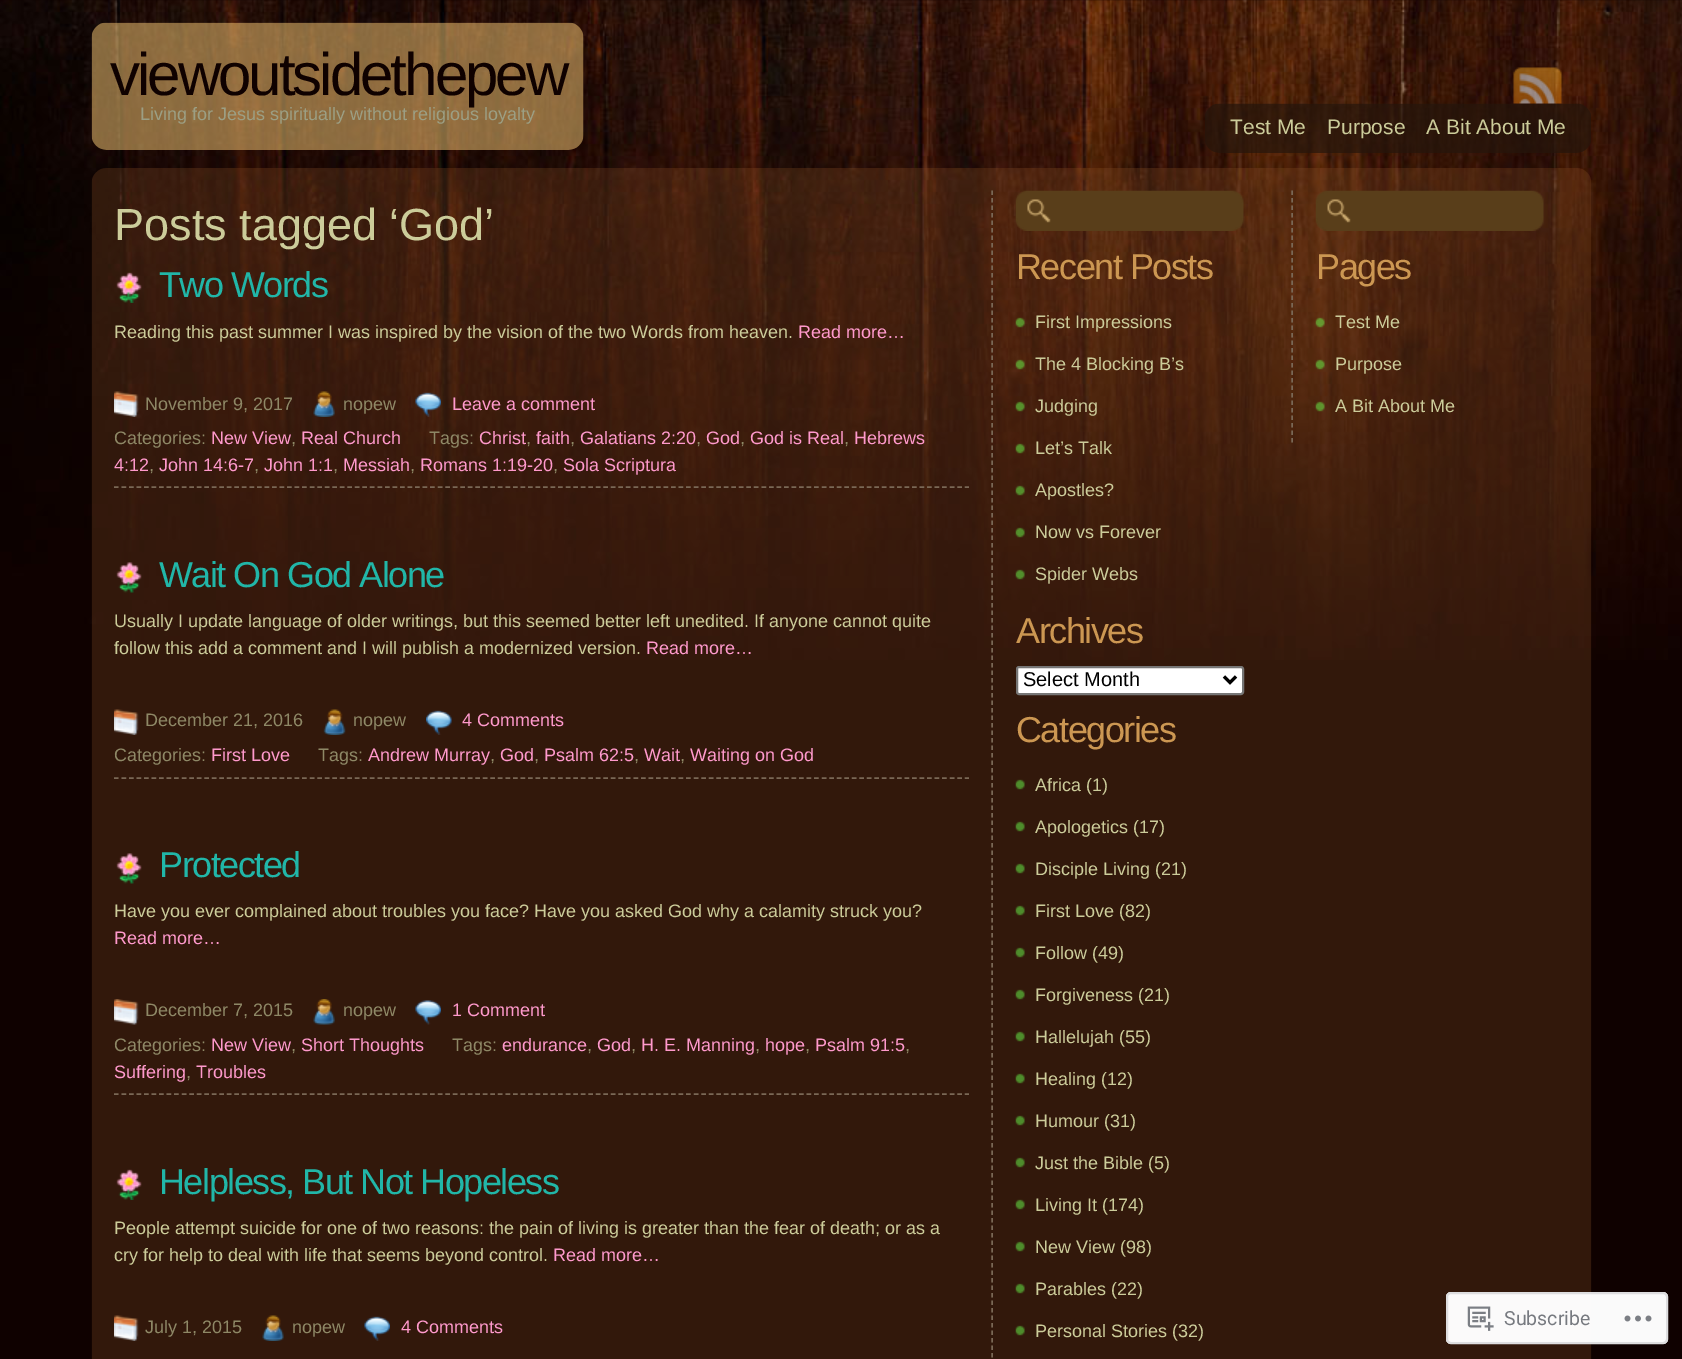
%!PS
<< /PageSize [1682 1359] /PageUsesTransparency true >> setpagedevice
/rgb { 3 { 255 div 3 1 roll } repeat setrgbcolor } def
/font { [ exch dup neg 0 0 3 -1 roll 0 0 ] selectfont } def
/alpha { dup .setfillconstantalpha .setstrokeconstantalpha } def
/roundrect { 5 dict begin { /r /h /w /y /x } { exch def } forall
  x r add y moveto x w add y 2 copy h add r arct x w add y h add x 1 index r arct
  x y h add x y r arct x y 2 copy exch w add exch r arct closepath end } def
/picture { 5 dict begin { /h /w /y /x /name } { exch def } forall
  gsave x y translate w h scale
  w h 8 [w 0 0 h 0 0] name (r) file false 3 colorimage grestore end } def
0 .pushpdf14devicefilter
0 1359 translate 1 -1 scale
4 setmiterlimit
15 1 0 rgb
0 0 1682 1359 rectfill
(img/1.rgb) 0 0 1682 660 picture
(img/2.rgb) 91 22 493 128 picture
(img/4.rgb) 1205 103 386 50 picture
(img/3.rgb) 1513 67 49 37 picture
(img/5.rgb) 91 168 1501 1191 picture
(img/6.rgb) 116 272 26 31 picture
122 104 86 rgb
1.5 setlinewidth
[4.5 3.03] 0 setdash
114 487 moveto 969 487 lineto stroke
(img/7.rgb) 114 391 25 26 picture
(img/8.rgb) 313 391 22 26 picture
(img/9.rgb) 415 392 26 25 picture
(img/10.rgb) 116 562 26 31 picture
114 778 moveto 969 778 lineto stroke
(img/11.rgb) 114 709 25 26 picture
(img/12.rgb) 323 709 23 26 picture
(img/13.rgb) 426 710 26 25 picture
(img/14.rgb) 116 853 26 31 picture
114 1094 moveto 969 1094 lineto stroke
(img/15.rgb) 114 999 25 26 picture
(img/16.rgb) 313 999 22 26 picture
(img/17.rgb) 415 1000 26 25 picture
(img/18.rgb) 116 1169 26 31 picture
(img/11.rgb) 114 1315 25 26 picture
(img/19.rgb) 262 1315 22 26 picture
(img/20.rgb) 364 1316 26 25 picture
[4.5 3] 0 setdash
992 190.5 moveto 992 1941 lineto stroke
(img/21.rgb) 1015 190 229 41 picture
(img/22.rgb) 1015 317 10 11 picture
(img/23.rgb) 1015 359 10 11 picture
(img/24.rgb) 1015 401 10 11 picture
(img/25.rgb) 1015 443 10 11 picture
(img/26.rgb) 1015 485 10 11 picture
(img/27.rgb) 1015 527 10 11 picture
(img/28.rgb) 1015 569 10 11 picture
255 255 255 rgb
1017 667 226 27 2 roundrect gsave fill grestore
118 118 118 rgb
2 setlinewidth
[] 0 setdash
stroke
0 0 0 rgb
3 setlinewidth
1224 676.5 moveto 1230 682.5 lineto 1236 676.5 lineto stroke
(img/29.rgb) 1015 779 10 11 picture
(img/29.rgb) 1015 821 10 11 picture
(img/29.rgb) 1015 863 10 11 picture
(img/29.rgb) 1015 905 10 11 picture
(img/29.rgb) 1015 947 10 11 picture
(img/29.rgb) 1015 989 10 11 picture
(img/29.rgb) 1015 1031 10 11 picture
(img/29.rgb) 1015 1073 10 11 picture
(img/29.rgb) 1015 1115 10 11 picture
(img/29.rgb) 1015 1157 10 11 picture
(img/29.rgb) 1015 1199 10 11 picture
(img/29.rgb) 1015 1241 10 11 picture
(img/29.rgb) 1015 1283 10 11 picture
(img/29.rgb) 1015 1325 10 11 picture
122 104 86 rgb
1.5 setlinewidth
[4.5 3] 0 setdash
1292 190.5 moveto 1292 442.5 lineto stroke
(img/30.rgb) 1315 190 229 41 picture
(img/31.rgb) 1315 317 10 11 picture
(img/32.rgb) 1315 359 10 11 picture
(img/33.rgb) 1315 401 10 11 picture
0.98 alpha
255 255 255 rgb
1446 1292 222 52 5 roundrect fill
220 220 222 rgb
2 setlinewidth
[] 0 setdash
1447 1293 220 50 4 roundrect stroke
1 alpha
(img/34.rgb) 1467 1306 27 25 picture
(img/35.rgb) 1624 1315 28 7 picture
/LiberationSans-Regular 60 font
15 1 0 rgb
110 95 moveto -3 0 (viewoutsidethepew) ashow
/LiberationSans-Regular 18 font
156 159 132 rgb
140 120 moveto (Living for Jesus spiritually without religious loyalty) show
/LiberationSans-Regular 21 font
204 204 154 rgb
[
  [(Test Me) 1230 134]
  [(Purpose) 1327 134]
  [(A Bit About Me) 1426 134]
] { aload pop moveto show } forall
/LiberationSans-Regular 45 font
114 240 moveto (Posts tagged ‘God’) show
/LiberationSans-Regular 36 font
33 182 168 rgb
159 297 moveto -1.5 0 (Two Words) ashow
/LiberationSans-Regular 18 font
204 204 154 rgb
114 338 moveto (Reading this past summer I was inspired by the vision of the two Words from heaven.) show
255 153 204 rgb
798 338 moveto (Read more…) show
142 136 102 rgb
145 410 moveto (November 9, 2017) show
343 410 moveto (nopew) show
255 153 204 rgb
452 410 moveto (Leave a comment) show
142 136 102 rgb
114 444 moveto (Categories:) show
255 153 204 rgb
211 444 moveto (New View) show
142 136 102 rgb
291 444 moveto (,) show
255 153 204 rgb
301 444 moveto (Real Church) show
142 136 102 rgb
429 444 moveto (Tags:) show
255 153 204 rgb
479 444 moveto (Christ) show
142 136 102 rgb
526 444 moveto (,) show
255 153 204 rgb
536 444 moveto (faith) show
142 136 102 rgb
570 444 moveto (,) show
255 153 204 rgb
580 444 moveto (Galatians 2:20) show
142 136 102 rgb
696 444 moveto (,) show
255 153 204 rgb
706 444 moveto (God) show
142 136 102 rgb
740 444 moveto (,) show
255 153 204 rgb
750 444 moveto (God is Real) show
142 136 102 rgb
844 444 moveto (,) show
255 153 204 rgb
854 444 moveto (Hebrews) show
114 471 moveto (4:12) show
142 136 102 rgb
149 471 moveto (,) show
255 153 204 rgb
159 471 moveto (John 14:6-7) show
142 136 102 rgb
254 471 moveto (,) show
255 153 204 rgb
264 471 moveto (John 1:1) show
142 136 102 rgb
333 471 moveto (,) show
255 153 204 rgb
343 471 moveto (Messiah) show
142 136 102 rgb
410 471 moveto (,) show
255 153 204 rgb
420 471 moveto (Romans 1:19-20) show
142 136 102 rgb
553 471 moveto (,) show
255 153 204 rgb
563 471 moveto (Sola Scriptura) show
/LiberationSans-Regular 36 font
33 182 168 rgb
159 587 moveto -1.5 0 (Wait On God Alone) ashow
/LiberationSans-Regular 18 font
204 204 154 rgb
114 627 moveto (Usually I update language of older writings, but this seemed better left unedited. If anyone cannot quite) show
114 654 moveto (follow this add a comment and I will publish a modernized version.) show
255 153 204 rgb
646 654 moveto (Read more…) show
142 136 102 rgb
145 726 moveto (December 21, 2016) show
353 726 moveto (nopew) show
255 153 204 rgb
462 726 moveto (4 Comments) show
142 136 102 rgb
114 761 moveto (Categories:) show
255 153 204 rgb
211 761 moveto (First Love) show
142 136 102 rgb
318 761 moveto (Tags:) show
255 153 204 rgb
368 761 moveto (Andrew Murray) show
142 136 102 rgb
490 761 moveto (,) show
255 153 204 rgb
500 761 moveto (God) show
142 136 102 rgb
534 761 moveto (,) show
255 153 204 rgb
544 761 moveto (Psalm 62:5) show
142 136 102 rgb
634 761 moveto (,) show
255 153 204 rgb
644 761 moveto (Wait) show
142 136 102 rgb
680 761 moveto (,) show
255 153 204 rgb
690 761 moveto (Waiting on God) show
/LiberationSans-Regular 36 font
33 182 168 rgb
159 877 moveto -1.5 0 (Protected) ashow
/LiberationSans-Regular 18 font
204 204 154 rgb
114 917 moveto (Have you ever complained about troubles you face? Have you asked God why a calamity struck you?) show
255 153 204 rgb
114 944 moveto (Read more…) show
142 136 102 rgb
145 1016 moveto (December 7, 2015) show
343 1016 moveto (nopew) show
255 153 204 rgb
452 1016 moveto (1 Comment) show
142 136 102 rgb
114 1051 moveto (Categories:) show
255 153 204 rgb
211 1051 moveto (New View) show
142 136 102 rgb
291 1051 moveto (,) show
255 153 204 rgb
301 1051 moveto (Short Thoughts) show
142 136 102 rgb
452 1051 moveto (Tags:) show
255 153 204 rgb
502 1051 moveto (endurance) show
142 136 102 rgb
587 1051 moveto (,) show
255 153 204 rgb
597 1051 moveto (God) show
142 136 102 rgb
631 1051 moveto (,) show
255 153 204 rgb
641 1051 moveto (H. E. Manning) show
142 136 102 rgb
755 1051 moveto (,) show
255 153 204 rgb
765 1051 moveto (hope) show
142 136 102 rgb
805 1051 moveto (,) show
255 153 204 rgb
815 1051 moveto (Psalm 91:5) show
142 136 102 rgb
905 1051 moveto (,) show
255 153 204 rgb
114 1078 moveto (Suffering) show
142 136 102 rgb
186 1078 moveto (,) show
255 153 204 rgb
196 1078 moveto (Troubles) show
/LiberationSans-Regular 36 font
33 182 168 rgb
159 1194 moveto -1.5 0 (Helpless, But Not Hopeless) ashow
/LiberationSans-Regular 18 font
204 204 154 rgb
114 1234 moveto (People attempt suicide for one of two reasons: the pain of living is greater than the fear of death; or as a) show
114 1261 moveto (cry for help to deal with life that seems beyond control.) show
255 153 204 rgb
553 1261 moveto (Read more…) show
142 136 102 rgb
145 1333 moveto (July 1, 2015) show
292 1333 moveto (nopew) show
255 153 204 rgb
401 1333 moveto (4 Comments) show
/LiberationSans-Regular 36 font
204 151 82 rgb
1016 279 moveto -1.5 0 (Recent Posts) ashow
/LiberationSans-Regular 18 font
204 204 154 rgb
[
  [(First Impressions) 1035 328]
  [(The 4 Blocking B’s) 1035 370]
  [(Judging) 1035 412]
  [(Let’s Talk) 1035 454]
  [(Apostles?) 1035 496]
  [(Now vs Forever) 1035 538]
  [(Spider Webs) 1035 580]
] { aload pop moveto show } forall
/LiberationSans-Regular 36 font
204 151 82 rgb
1016 643 moveto -1.5 0 (Archives) ashow
/LiberationSans-Regular 20 font
0 0 0 rgb
1023 686 moveto (Select Month) show
/LiberationSans-Regular 36 font
204 151 82 rgb
1016 742 moveto -1.5 0 (Categories) ashow
/LiberationSans-Regular 18 font
204 204 154 rgb
[
  [(Africa \(1\)) 1035 791]
  [(Apologetics \(17\)) 1035 833]
  [(Disciple Living \(21\)) 1035 875]
  [(First Love \(82\)) 1035 917]
  [(Follow \(49\)) 1035 959]
  [(Forgiveness \(21\)) 1035 1001]
  [(Hallelujah \(55\)) 1035 1043]
  [(Healing \(12\)) 1035 1085]
  [(Humour \(31\)) 1035 1127]
  [(Just the Bible \(5\)) 1035 1169]
  [(Living It \(174\)) 1035 1211]
  [(New View \(98\)) 1035 1253]
  [(Parables \(22\)) 1035 1295]
  [(Personal Stories \(32\)) 1035 1337]
] { aload pop moveto show } forall
/LiberationSans-Regular 36 font
204 151 82 rgb
1316 279 moveto -1.5 0 (Pages) ashow
/LiberationSans-Regular 18 font
204 204 154 rgb
[
  [(Test Me) 1335 328]
  [(Purpose) 1335 370]
  [(A Bit About Me) 1335 412]
] { aload pop moveto show } forall
/Roboto-Regular 19.5 font
119 122 128 rgb
1504 1325 moveto (Subscribe) show
.poppdf14devicefilter showpage
